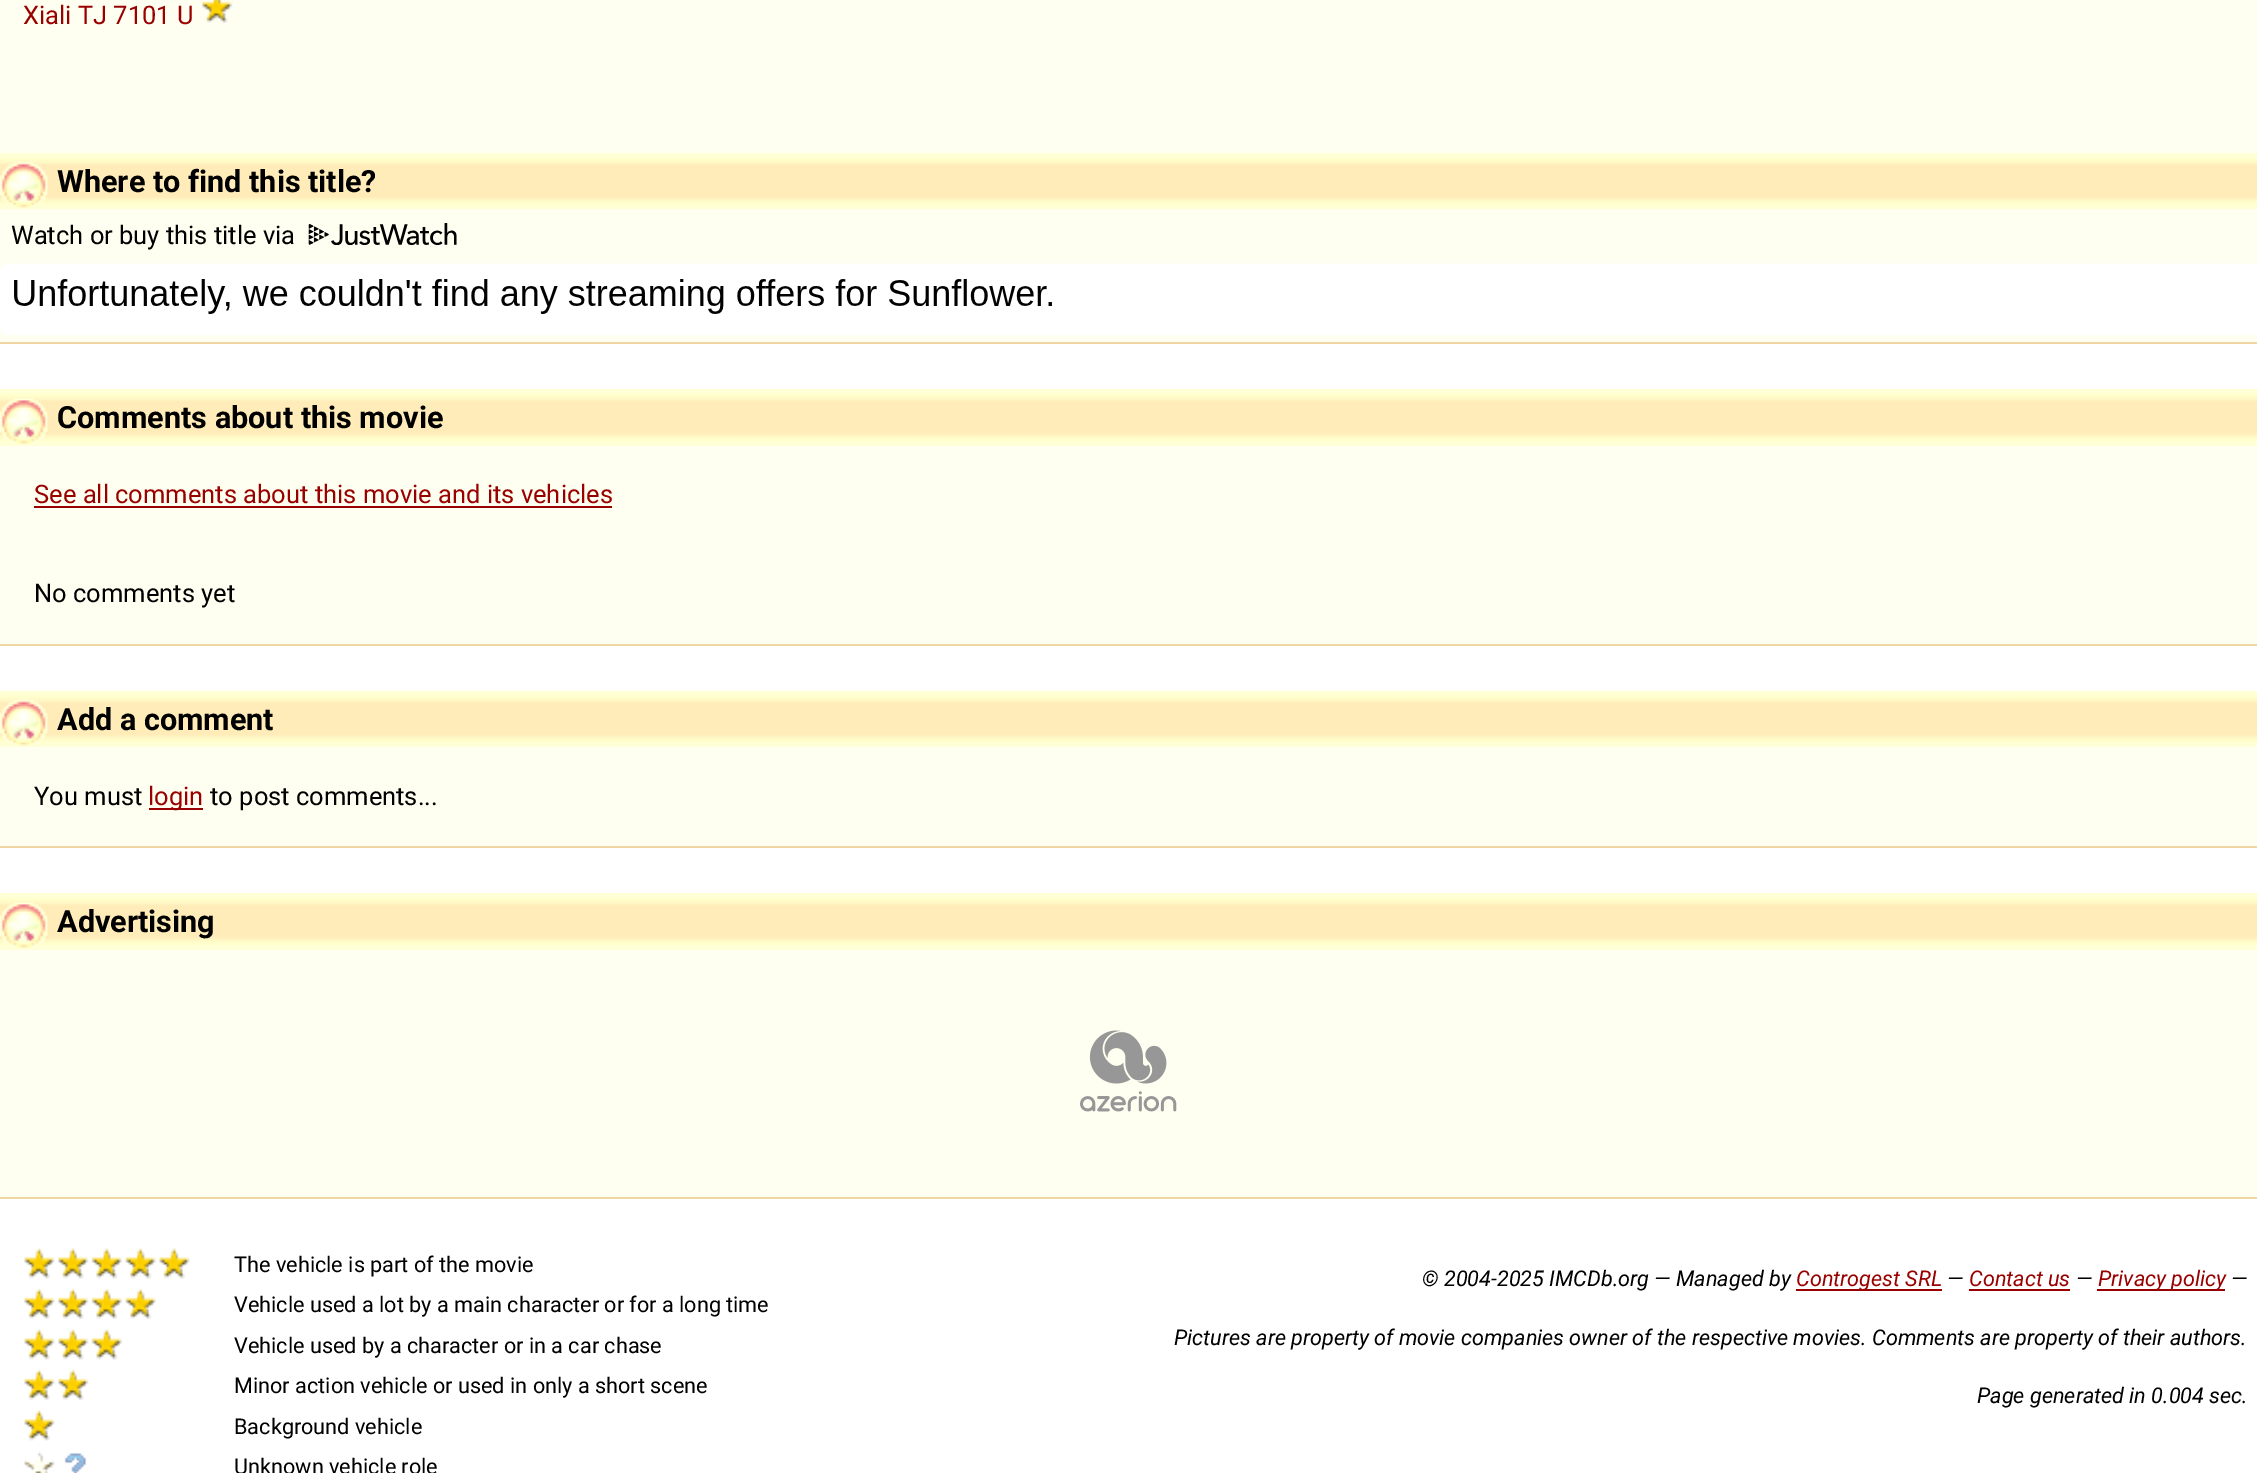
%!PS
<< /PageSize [2257 1473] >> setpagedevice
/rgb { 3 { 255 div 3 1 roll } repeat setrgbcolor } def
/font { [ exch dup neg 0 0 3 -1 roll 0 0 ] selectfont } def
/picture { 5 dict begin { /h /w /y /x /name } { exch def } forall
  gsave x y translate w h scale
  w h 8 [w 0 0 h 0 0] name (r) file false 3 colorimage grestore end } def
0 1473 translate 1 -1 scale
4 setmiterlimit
255 255 255 rgb
0 0 2257 1473 rectfill
255 255 241 rgb
0 0 2257 342 rectfill
239 214 163 rgb
0 342 2257 2 rectfill
(img/1.rgb) 202 0 31 23 picture
255 255 215 rgb
0 153 2257 4 rectfill
(img/2.rgb) 0 157 2257 53 picture
(img/3.rgb) 0 161 48 47 picture
(img/4.rgb) 308 223 149 22 picture
(img/5.rgb) 0 263 2257 72 picture
[
  [0 446 2257 198 255 255 241]
  [0 644 2257 2 239 214 163]
  [0 389 2257 57 255 255 215]
] { aload pop rgb rectfill } forall
(img/6.rgb) 0 393 2257 49 picture
(img/7.rgb) 0 398 48 46 picture
[
  [34 506 578 2 153 0 0]
  [0 747 2257 99 255 255 241]
  [0 846 2257 2 239 214 163]
  [0 743 2257 4 255 255 215]
] { aload pop rgb rectfill } forall
(img/8.rgb) 0 690 2257 53 picture
(img/9.rgb) 0 699 48 47 picture
[
  [149 808 54 2 153 0 0]
  [0 950 2257 247 255 255 241]
  [0 1197 2257 2 239 214 163]
  [0 893 2257 57 255 255 215]
] { aload pop rgb rectfill } forall
(img/10.rgb) 0 897 2257 49 picture
(img/11.rgb) 0 902 48 46 picture
(img/12.rgb) 1080 1030 97 82 picture
(img/13.rgb) 24 1248 31 31 picture
(img/14.rgb) 58 1248 31 31 picture
(img/15.rgb) 91 1248 31 31 picture
(img/16.rgb) 125 1248 31 31 picture
(img/17.rgb) 159 1248 31 31 picture
(img/18.rgb) 24 1288 31 31 picture
(img/19.rgb) 58 1288 31 31 picture
(img/20.rgb) 91 1288 31 31 picture
(img/21.rgb) 125 1288 31 31 picture
(img/13.rgb) 24 1329 31 31 picture
(img/14.rgb) 58 1329 31 31 picture
(img/15.rgb) 91 1329 31 31 picture
(img/18.rgb) 24 1369 31 31 picture
(img/19.rgb) 58 1369 31 31 picture
(img/22.rgb) 24 1410 31 31 picture
(img/23.rgb) 24 1451 63 22 picture
[
  [1796 1289 146 2 153 0 0]
  [1969 1289 101 2 153 0 0]
  [2097 1289 128 2 153 0 0]
] { aload pop rgb rectfill } forall
/Roboto-Regular 25.5 font
23 24 moveto (Xiali TJ 7101 U) show
/Roboto-Bold 30.6 font
0 0 0 rgb
57 192 moveto (Where to find this title?) show
/Roboto-Regular 25.5 font
11 244 moveto (Watch or buy this title via) show
/Roboto-Bold 30.6 font
57 428 moveto (Comments about this movie) show
/Roboto-Regular 25.5 font
153 0 0 rgb
34 503 moveto (See all comments about this movie and its vehicles) show
0 0 0 rgb
34 602 moveto (No comments yet) show
/Roboto-Bold 30.6 font
57 730 moveto (Add a comment) show
/Roboto-Regular 25.5 font
34 805 moveto (You must) show
153 0 0 rgb
148 805 moveto (login) show
0 0 0 rgb
210 805 moveto (to post comments...) show
/Roboto-Bold 30.6 font
57 932 moveto (Advertising) show
/Roboto-Regular 21.65 font
[
  [(The vehicle is part of the movie) 234 1272]
  [(Vehicle used a lot by a main character or for a long time) 234 1312]
  [(Vehicle used by a character or in a car chase) 234 1353]
  [(Minor action vehicle or used in only a short scene) 234 1393]
  [(Background vehicle) 234 1434]
  [(Unknown vehicle role) 234 1474]
] { aload pop moveto show } forall
/Roboto-Italic 21.65 font
1422 1286 moveto (© 2004-2025 IMCDb.org — Managed by) show
153 0 0 rgb
1796 1286 moveto (Controgest SRL) show
0 0 0 rgb
1947 1286 moveto (—) show
153 0 0 rgb
1969 1286 moveto (Contact us) show
0 0 0 rgb
2076 1286 moveto (—) show
153 0 0 rgb
2098 1286 moveto (Privacy policy) show
0 0 0 rgb
[
  [(—) 2231 1286]
  [(Pictures are property of movie companies owner of the respective movies. Comments are property of their authors.) 1174 1345]
  [(Page generated in 0.004 sec.) 1977 1403]
] { aload pop moveto show } forall
showpage
